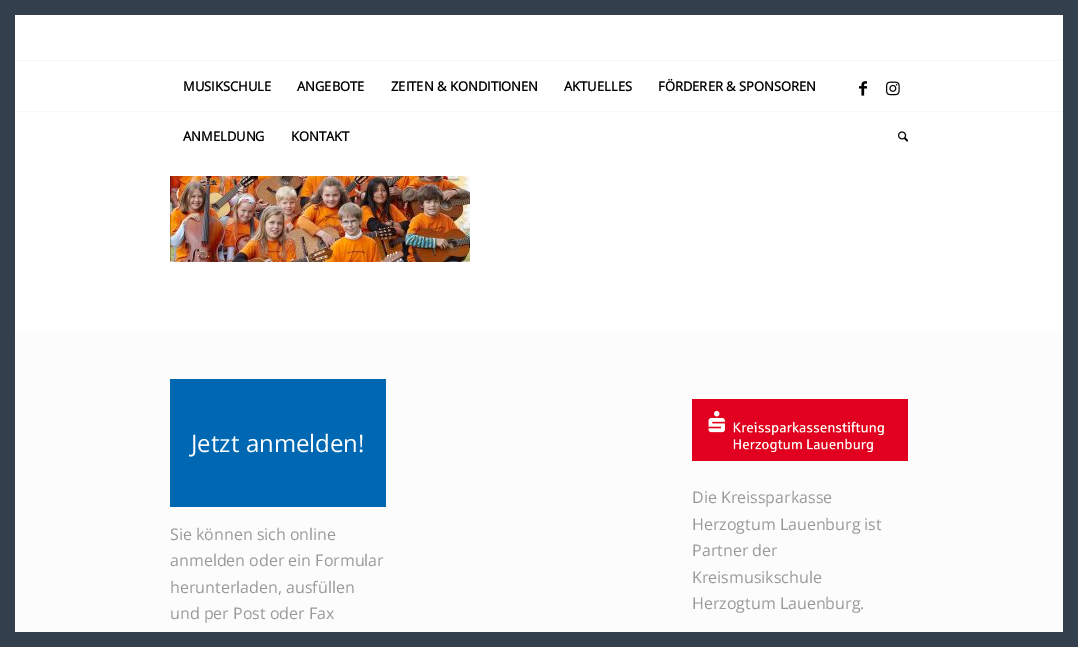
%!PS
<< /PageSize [1078 647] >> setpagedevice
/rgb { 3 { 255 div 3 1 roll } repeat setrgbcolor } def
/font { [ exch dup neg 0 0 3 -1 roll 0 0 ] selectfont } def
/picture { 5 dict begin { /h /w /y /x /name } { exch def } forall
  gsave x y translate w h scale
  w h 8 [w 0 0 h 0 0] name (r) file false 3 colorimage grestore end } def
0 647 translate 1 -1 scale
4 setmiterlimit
255 255 255 rgb
0 0 1078 647 rectfill
[
  [0 0 15 647 52 63 78]
  [15 0 1048 15 52 63 78]
  [1063 0 15 647 52 63 78]
  [15 111 1048 1 248 248 248]
  [15 60 1048 1 248 248 248]
] { aload pop rgb rectfill } forall
(img/1.rgb) 898 131 10 11 picture
(img/2.rgb) 859 81 8 15 picture
(img/3.rgb) 886 81 14 15 picture
(img/4.rgb) 170 176 300 86 picture
252 252 252 rgb
15 333 1048 299 rectfill
0 104 179 rgb
170 379 216 128 rectfill
(img/5.rgb) 692 399 216 62 picture
52 63 78 rgb
15 632 1048 15 rectfill
/OpenSans-Bold 13 font
0 0 0 rgb
[
  [(MUSIKSCHULE) 183 91]
  [(ANGEBOTE) 297 91]
  [(ZEITEN & KONDITIONEN) 391 91]
  [(AKTUELLES) 564 91]
  [(FÖRDERER & SPONSOREN) 658 91]
  [(ANMELDUNG) 183 141]
  [(KONTAKT) 291 141]
] { aload pop moveto show } forall
/OpenSans-Regular 24 font
255 255 255 rgb
191 452 moveto (Jetzt anmelden!) show
/OpenSans-Regular 16 font
153 153 153 rgb
[
  [(Sie können sich online) 170 540]
  [(anmelden oder ein Formular) 170 566]
  [(herunterladen, ausfüllen) 170 593]
  [(und per Post oder Fax) 170 619]
  [(Die Kreissparkasse) 692 503]
  [(Herzogtum Lauenburg ist) 692 530]
  [(Partner der) 692 556]
  [(Kreismusikschule) 692 583]
  [(Herzogtum Lauenburg.) 692 609]
] { aload pop moveto show } forall
showpage
